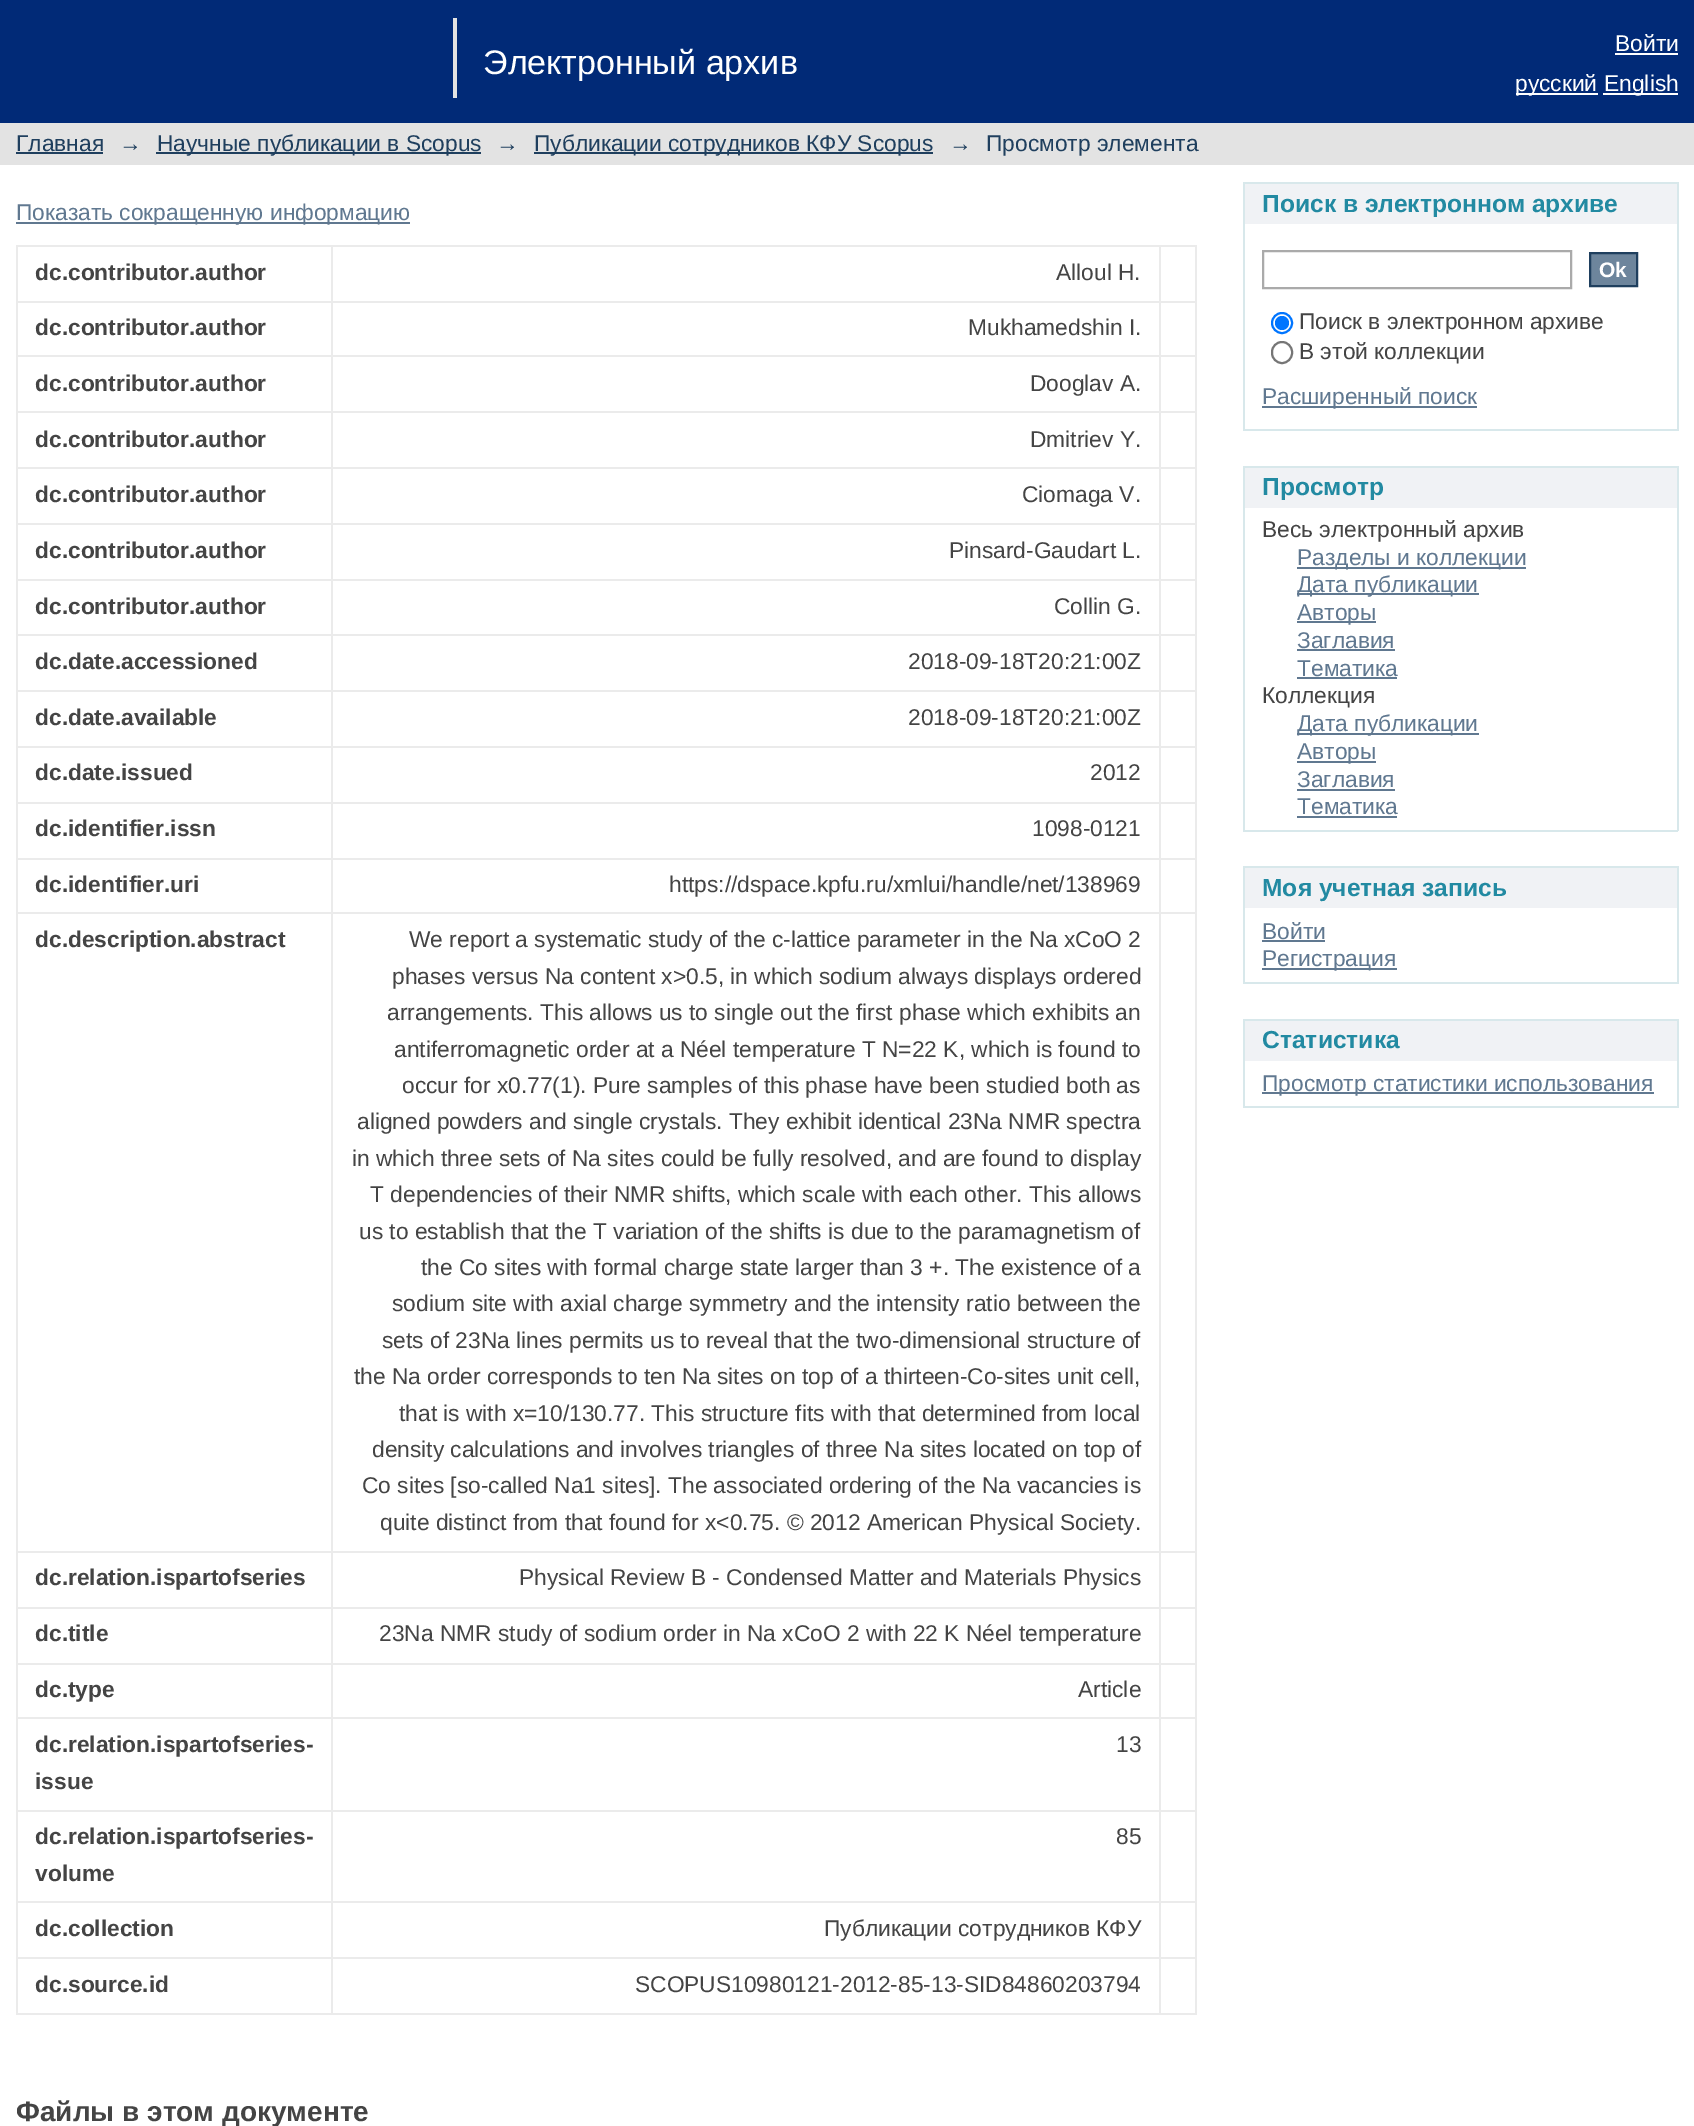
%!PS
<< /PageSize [1694 2126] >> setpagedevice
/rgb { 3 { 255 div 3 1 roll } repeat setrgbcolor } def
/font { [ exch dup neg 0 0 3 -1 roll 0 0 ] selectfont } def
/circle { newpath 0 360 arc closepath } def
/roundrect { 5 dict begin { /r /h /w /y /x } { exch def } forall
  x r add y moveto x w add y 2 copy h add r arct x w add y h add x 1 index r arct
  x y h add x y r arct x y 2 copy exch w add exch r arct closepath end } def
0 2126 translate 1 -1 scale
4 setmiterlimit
255 255 255 rgb
0 0 1694 2126 rectfill
[
  [0 0 1694 123 1 42 119]
  [1615 53 63 2 255 255 255]
  [453 18 4 80 227 227 227]
  [1516 93 82 2 255 255 255]
  [1603 93 75 2 255 255 255]
  [0 123 1694 42 227 227 227]
  [16 152 87 2 31 63 94]
  [156 152 325 2 31 63 94]
  [534 152 399 2 31 63 94]
  [16 222 394 2 96 120 144]
  [16 245 1181 2 235 235 235]
  [16 301 1181 2 235 235 235]
  [16 355 1181 2 235 235 235]
  [16 411 1181 2 235 235 235]
  [16 467 1181 2 235 235 235]
  [16 523 1181 2 235 235 235]
  [16 579 1181 2 235 235 235]
  [16 634 1181 2 235 235 235]
  [16 690 1181 2 235 235 235]
  [16 746 1181 2 235 235 235]
  [16 802 1181 2 235 235 235]
  [16 858 1181 2 235 235 235]
  [16 912 1181 2 235 235 235]
  [16 1551 1181 2 235 235 235]
  [16 1607 1181 2 235 235 235]
  [16 1663 1181 2 235 235 235]
  [16 1717 1181 2 235 235 235]
  [16 1810 1181 2 235 235 235]
  [16 1901 1181 2 235 235 235]
  [16 1957 1181 2 235 235 235]
  [1195 1957 2 57 235 235 235]
  [1195 1901 2 57 235 235 235]
  [1195 1810 2 92 235 235 235]
  [1195 1717 2 94 235 235 235]
  [1195 1663 2 56 235 235 235]
  [1195 1607 2 57 235 235 235]
  [1195 1551 2 57 235 235 235]
  [1195 912 2 640 235 235 235]
  [1195 858 2 56 235 235 235]
  [1195 802 2 57 235 235 235]
  [1195 746 2 57 235 235 235]
  [1195 690 2 57 235 235 235]
  [1195 634 2 57 235 235 235]
  [1195 579 2 56 235 235 235]
  [1195 523 2 58 235 235 235]
  [1195 467 2 58 235 235 235]
  [1195 411 2 58 235 235 235]
  [1195 355 2 58 235 235 235]
  [1195 301 2 56 235 235 235]
  [1195 245 2 58 235 235 235]
  [16 2013 1181 2 235 235 235]
  [16 1957 2 57 235 235 235]
  [16 1901 2 57 235 235 235]
  [16 1810 2 92 235 235 235]
  [16 1717 2 94 235 235 235]
  [16 1663 2 56 235 235 235]
  [16 1607 2 57 235 235 235]
  [16 1551 2 57 235 235 235]
  [16 912 2 640 235 235 235]
  [16 858 2 56 235 235 235]
  [16 802 2 57 235 235 235]
  [16 746 2 57 235 235 235]
  [16 690 2 57 235 235 235]
  [16 634 2 57 235 235 235]
  [16 579 2 56 235 235 235]
  [16 523 2 58 235 235 235]
  [16 467 2 58 235 235 235]
  [16 411 2 58 235 235 235]
  [16 355 2 58 235 235 235]
  [16 301 2 56 235 235 235]
  [16 245 2 58 235 235 235]
  [331 245 2 1769 235 235 235]
  [1159 245 2 1769 235 235 235]
  [1245 184 432 40 240 242 245]
  [1243 182 435 2 216 232 235]
  [1677 182 2 249 216 232 235]
  [1243 182 2 42 216 232 235]
  [1243 429 435 2 216 232 235]
  [1243 224 2 207 216 232 235]
] { aload pop rgb rectfill } forall
170 170 170 rgb
2 setlinewidth
1263 251 308 37 rectstroke
109 133 156 rgb
1590 253 moveto 1637 253 lineto 1637 286 lineto 1590 286 lineto closepath gsave fill grestore
31 63 94 rgb
stroke
0 117 255 rgb
1282 323 10 circle stroke
1282 323 7 circle fill
118 118 118 rgb
1272 342 20 21 10 roundrect stroke
[
  [1262 406 215 2 96 120 144]
  [1245 468 432 40 240 242 245]
  [1243 466 435 2 216 232 235]
  [1677 466 2 365 216 232 235]
  [1243 466 2 42 216 232 235]
  [1243 830 435 2 216 232 235]
  [1243 508 2 323 216 232 235]
  [1297 567 229 2 96 120 144]
  [1297 593 182 2 96 120 144]
  [1297 621 79 2 96 120 144]
  [1297 649 98 2 96 120 144]
  [1297 677 100 2 96 120 144]
  [1297 733 182 2 96 120 144]
  [1297 761 79 2 96 120 144]
  [1297 789 98 2 96 120 144]
  [1297 816 100 2 96 120 144]
  [1245 868 432 40 240 242 245]
  [1243 866 435 2 216 232 235]
  [1677 866 2 118 216 232 235]
  [1243 866 2 42 216 232 235]
  [1243 982 435 2 216 232 235]
  [1243 908 2 76 216 232 235]
  [1262 940 63 2 96 120 144]
  [1262 968 135 2 96 120 144]
  [1245 1021 432 40 240 242 245]
  [1243 1019 435 2 216 232 235]
  [1677 1019 2 89 216 232 235]
  [1243 1019 2 42 216 232 235]
  [1243 1106 435 2 216 232 235]
  [1243 1061 2 47 216 232 235]
  [1262 1092 392 2 96 120 144]
] { aload pop rgb rectfill } forall
/LiberationSans-Regular 22.75 font
255 255 255 rgb
1615 51 moveto (Войти) show
/LiberationSans-Regular 34.1 font
483 74 moveto (Электронный архив) show
/LiberationSans-Regular 22.75 font
1515 91 moveto (русский) show
1604 91 moveto (English) show
31 63 94 rgb
[
  [(Главная) 16 151]
  [(→) 119 151]
  [(Научные публикации в Scopus) 157 151]
  [(→) 496 151]
  [(Публикации сотрудников КФУ Scopus) 534 151]
  [(→) 949 151]
  [(Просмотр элемента) 986 151]
] { aload pop moveto show } forall
96 120 144 rgb
16 220 moveto (Показать сокращенную информацию) show
/LiberationSans-Bold 22.75 font
68 68 68 rgb
35 280 moveto (dc.contributor.author) show
/LiberationSans-Regular 22.75 font
1056 280 moveto (Alloul H.) show
/LiberationSans-Bold 22.75 font
35 335 moveto (dc.contributor.author) show
/LiberationSans-Regular 22.75 font
968 335 moveto (Mukhamedshin I.) show
/LiberationSans-Bold 22.75 font
35 391 moveto (dc.contributor.author) show
/LiberationSans-Regular 22.75 font
1030 391 moveto (Dooglav A.) show
/LiberationSans-Bold 22.75 font
35 447 moveto (dc.contributor.author) show
/LiberationSans-Regular 22.75 font
1030 447 moveto (Dmitriev Y.) show
/LiberationSans-Bold 22.75 font
35 502 moveto (dc.contributor.author) show
/LiberationSans-Regular 22.75 font
1022 502 moveto (Ciomaga V.) show
/LiberationSans-Bold 22.75 font
35 558 moveto (dc.contributor.author) show
/LiberationSans-Regular 22.75 font
949 558 moveto (Pinsard-Gaudart L.) show
/LiberationSans-Bold 22.75 font
35 614 moveto (dc.contributor.author) show
/LiberationSans-Regular 22.75 font
1054 614 moveto (Collin G.) show
/LiberationSans-Bold 22.75 font
35 669 moveto (dc.date.accessioned) show
/LiberationSans-Regular 22.75 font
908 669 moveto (2018-09-18T20:21:00Z) show
/LiberationSans-Bold 22.75 font
35 725 moveto (dc.date.available) show
/LiberationSans-Regular 22.75 font
908 725 moveto (2018-09-18T20:21:00Z) show
/LiberationSans-Bold 22.75 font
35 780 moveto (dc.date.issued) show
/LiberationSans-Regular 22.75 font
1090 780 moveto (2012) show
/LiberationSans-Bold 22.75 font
35 836 moveto (dc.identifier.issn) show
/LiberationSans-Regular 22.75 font
1032 836 moveto (1098-0121) show
/LiberationSans-Bold 22.75 font
35 892 moveto (dc.identifier.uri) show
/LiberationSans-Regular 22.75 font
669 892 moveto (https://dspace.kpfu.ru/xmlui/handle/net/138969) show
/LiberationSans-Bold 22.75 font
35 947 moveto (dc.description.abstract) show
/LiberationSans-Regular 22.75 font
[
  [(We report a systematic study of the c-lattice parameter in the Na xCoO 2) 409 947]
  [(phases versus Na content x>0.5, in which sodium always displays ordered) 392 984]
  [(arrangements. This allows us to single out the first phase which exhibits an) 387 1020]
  [(antiferromagnetic order at a Néel temperature T N=22 K, which is found to) 394 1057]
  [(occur for x0.77\(1\). Pure samples of this phase have been studied both as) 402 1093]
  [(aligned powders and single crystals. They exhibit identical 23Na NMR spectra) 357 1129]
  [(in which three sets of Na sites could be fully resolved, and are found to display) 352 1166]
  [(T dependencies of their NMR shifts, which scale with each other. This allows) 370 1202]
  [(us to establish that the T variation of the shifts is due to the paramagnetism of) 359 1239]
  [(the Co sites with formal charge state larger than 3 +. The existence of a) 421 1275]
  [(sodium site with axial charge symmetry and the intensity ratio between the) 392 1311]
  [(sets of 23Na lines permits us to reveal that the two-dimensional structure of) 382 1348]
  [(the Na order corresponds to ten Na sites on top of a thirteen-Co-sites unit cell,) 354 1384]
  [(that is with x=10/130.77. This structure fits with that determined from local) 399 1421]
  [(density calculations and involves triangles of three Na sites located on top of) 372 1457]
  [(Co sites [so-called Na1 sites]. The associated ordering of the Na vacancies is) 362 1493]
  [(quite distinct from that found for x<0.75. © 2012 American Physical Society.) 380 1530]
] { aload pop moveto show } forall
/LiberationSans-Bold 22.75 font
35 1585 moveto (dc.relation.ispartofseries) show
/LiberationSans-Regular 22.75 font
519 1585 moveto (Physical Review B - Condensed Matter and Materials Physics) show
/LiberationSans-Bold 22.75 font
35 1641 moveto (dc.title) show
/LiberationSans-Regular 22.75 font
379 1641 moveto (23Na NMR study of sodium order in Na xCoO 2 with 22 K Néel temperature) show
/LiberationSans-Bold 22.75 font
35 1697 moveto (dc.type) show
/LiberationSans-Regular 22.75 font
1078 1697 moveto (Article) show
/LiberationSans-Bold 22.75 font
35 1752 moveto (dc.relation.ispartofseries-) show
35 1789 moveto (issue) show
/LiberationSans-Regular 22.75 font
1116 1752 moveto (13) show
/LiberationSans-Bold 22.75 font
35 1844 moveto (dc.relation.ispartofseries-) show
35 1881 moveto (volume) show
/LiberationSans-Regular 22.75 font
1116 1844 moveto (85) show
/LiberationSans-Bold 22.75 font
35 1936 moveto (dc.collection) show
/LiberationSans-Regular 22.75 font
824 1936 moveto (Публикации сотрудников КФУ) show
/LiberationSans-Bold 22.75 font
35 1992 moveto (dc.source.id) show
/LiberationSans-Regular 22.75 font
635 1992 moveto (SCOPUS10980121-2012-85-13-SID84860203794) show
/LiberationSans-Bold 28 font
16 2121 moveto (Файлы в этом документе) show
/LiberationSans-Bold 24.6 font
34 138 162 rgb
1262 212 moveto (Поиск в электронном архиве) show
/LiberationSans-Bold 21 font
255 255 255 rgb
1599 277 moveto (Ok) show
/LiberationSans-Regular 22.75 font
68 68 68 rgb
1299 329 moveto (Поиск в электронном архиве) show
1299 359 moveto (В этой коллекции) show
96 120 144 rgb
1262 404 moveto (Расширенный поиск) show
/LiberationSans-Bold 24.6 font
34 138 162 rgb
1262 495 moveto (Просмотр) show
/LiberationSans-Regular 22.75 font
68 68 68 rgb
1262 537 moveto (Весь электронный архив) show
96 120 144 rgb
[
  [(Разделы и коллекции) 1297 565]
  [(Дата публикации) 1297 592]
  [(Авторы) 1297 620]
  [(Заглавия) 1297 648]
  [(Тематика) 1297 676]
] { aload pop moveto show } forall
68 68 68 rgb
1262 703 moveto (Коллекция) show
96 120 144 rgb
[
  [(Дата публикации) 1297 731]
  [(Авторы) 1297 759]
  [(Заглавия) 1297 787]
  [(Тематика) 1297 814]
] { aload pop moveto show } forall
/LiberationSans-Bold 24.6 font
34 138 162 rgb
1262 896 moveto (Моя учетная запись) show
/LiberationSans-Regular 22.75 font
96 120 144 rgb
1262 939 moveto (Войти) show
1262 966 moveto (Регистрация) show
/LiberationSans-Bold 24.6 font
34 138 162 rgb
1262 1048 moveto (Статистика) show
/LiberationSans-Regular 22.75 font
96 120 144 rgb
1262 1091 moveto (Просмотр статистики использования) show
showpage
